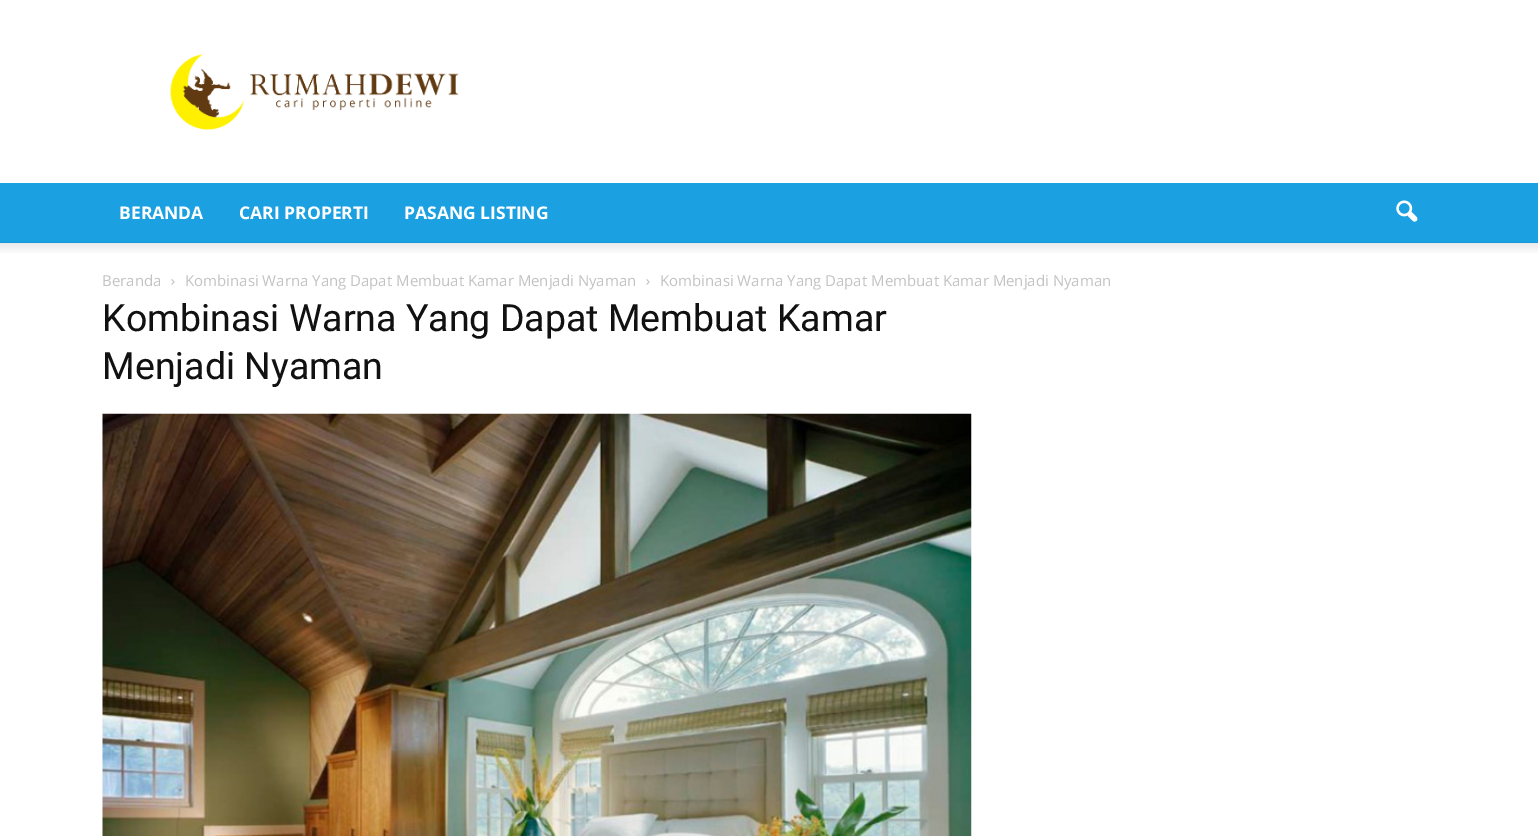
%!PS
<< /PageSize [1538 836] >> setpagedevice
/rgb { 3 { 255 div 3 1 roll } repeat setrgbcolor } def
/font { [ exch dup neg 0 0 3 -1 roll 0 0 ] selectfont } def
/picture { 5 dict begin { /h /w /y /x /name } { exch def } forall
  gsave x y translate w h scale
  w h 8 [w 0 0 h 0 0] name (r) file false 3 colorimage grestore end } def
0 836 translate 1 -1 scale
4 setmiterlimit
255 255 255 rgb
0 0 1538 836 rectfill
(img/1.rgb) 170 54 289 76 picture
27 160 225 rgb
0 183 1538 60 rectfill
(img/2.rgb) 1396 200 22 22 picture
(img/3.rgb) 0 242 1538 11 picture
(img/4.rgb) 171 279 4 6 picture
(img/4.rgb) 646 279 4 6 picture
(img/5.rgb) 102 413 870 423 picture
/OpenSans-Bold 17.5 font
255 255 255 rgb
[
  [(BERANDA) 119 219]
  [(CARI PROPERTI) 239 219]
  [(PASANG LISTING) 404 219]
] { aload pop moveto show } forall
/OpenSans-Regular 15 font
195 195 195 rgb
[
  [(Beranda) 102 286]
  [(Kombinasi Warna Yang Dapat Membuat Kamar Menjadi Nyaman) 185 286]
  [(Kombinasi Warna Yang Dapat Membuat Kamar Menjadi Nyaman) 660 286]
] { aload pop moveto show } forall
/Roboto-Regular 37.5 font
17 17 17 rgb
102 331 moveto (Kombinasi Warna Yang Dapat Membuat Kamar) show
102 379 moveto (Menjadi Nyaman) show
showpage
